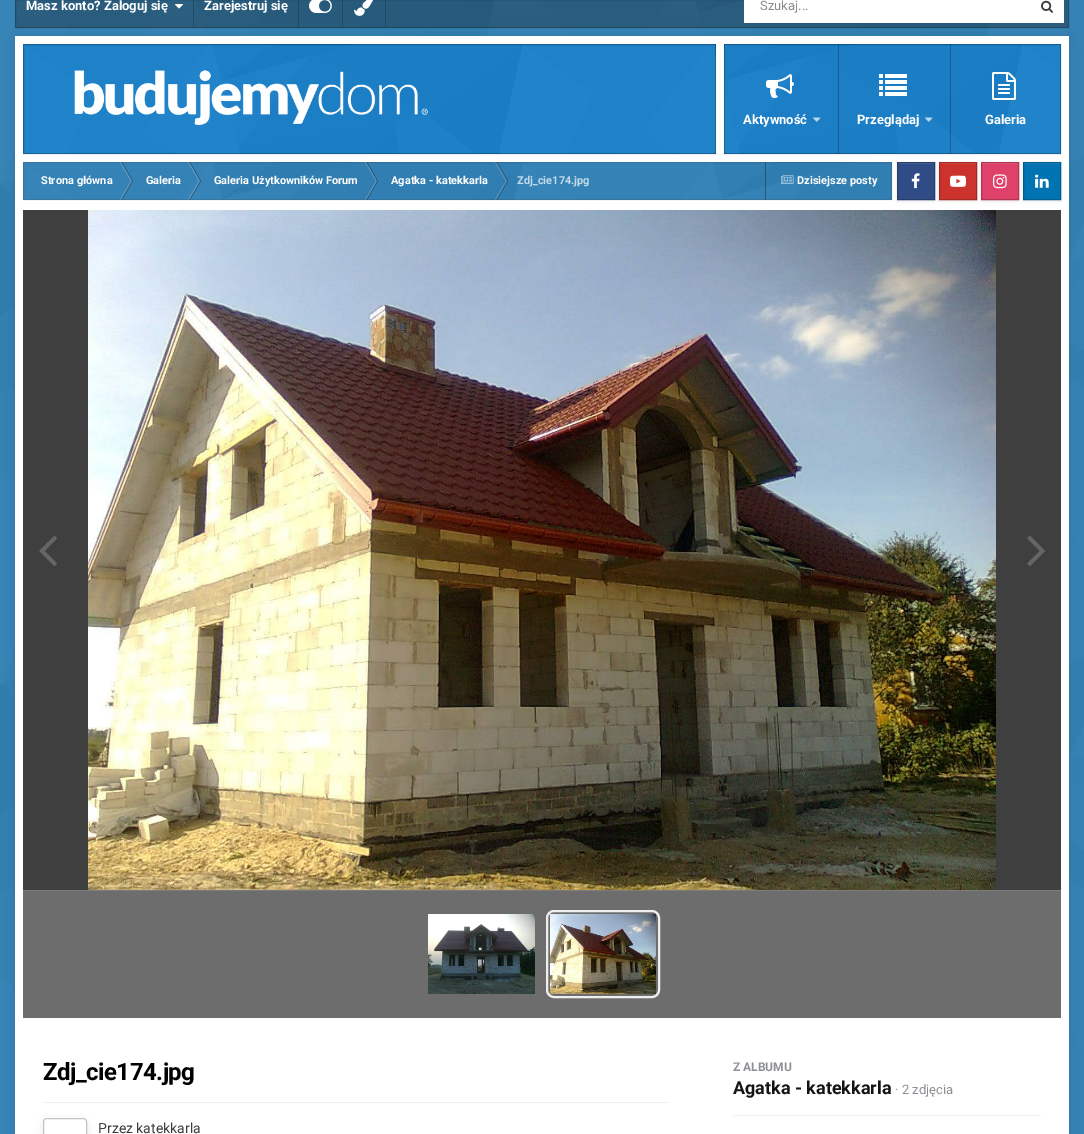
%!PS
<< /PageSize [1084 1134] /PageUsesTransparency true >> setpagedevice
/rgb { 3 { 255 div 3 1 roll } repeat setrgbcolor } def
/font { [ exch dup neg 0 0 3 -1 roll 0 0 ] selectfont } def
/alpha { dup .setfillconstantalpha .setstrokeconstantalpha } def
/roundrect { 5 dict begin { /r /h /w /y /x } { exch def } forall
  x r add y moveto x w add y 2 copy h add r arct x w add y h add x 1 index r arct
  x y h add x y r arct x y 2 copy exch w add exch r arct closepath end } def
/shadow { 12 dict begin { /a /b /q /h /w /y /x } { exch def } forall gsave /was 0 def
  9 -2 -9 { dup b mul 4 div /e exch def 1 sub .425 mul 2.718 exch exp 1 add a .99 .min exch div /now exch def
    1 1 now sub 1 was sub div sub alpha /was now def
    w h .min e 2 mul add 0 gt { x e sub y e sub w e 2 mul add h e 2 mul add
      q e add b .6 mul add w h .min 2 div e add .min 0 .max roundrect fill } if } for grestore end } def
/picture { 5 dict begin { /h /w /y /x /name } { exch def } forall
  gsave x y translate w h scale
  w h 8 [w 0 0 h 0 0] name (r) file false 3 colorimage grestore end } def
0 .pushpdf14devicefilter
0 1134 translate 1 -1 scale
4 setmiterlimit
46 129 182 rgb
0 0 1084 1134 rectfill
(img/1.rgb) 0 0 1084 1134 picture
0 0 0 rgb
15 36 1054 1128 0 10 0.06 shadow
0.35 alpha
20 20 20 rgb
15 0 1054 28 rectfill
0.2 alpha
0 0 0 rgb
15.5 -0.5 1053 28 rectstroke
1 alpha
34 75 101 rgb
193 0 1 27 rectfill
(img/2.rgb) 175 4 8 5 picture
31 72 98 rgb
298 0 1 27 rectfill
342 0 1 27 rectfill
(img/3.rgb) 309 0 23 13 picture
385 0 1 27 rectfill
(img/4.rgb) 354 0 19 16 picture
255 255 255 rgb
744 0 320 23 rectfill
(img/5.rgb) 1041 0 12 13 picture
0 0 0 rgb
15 37 1054 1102 0 1.5 0.08 shadow
255 255 255 rgb
15 36 1054 1098 rectfill
23 126 201 rgb
23 44 1038 110 rectfill
(img/6.rgb) 23 44 1038 110 picture
0.25 alpha
0 0 0 rgb
23.5 44.5 1037 109 rectstroke
1 alpha
(img/7.rgb) 74 70 354 56 picture
0.25 alpha
[
  [715 44 1 110 0 0 0]
] { aload pop rgb rectfill } forall
1 alpha
[
  [716 44 8 110 255 255 255]
] { aload pop rgb rectfill } forall
0.25 alpha
[
  [724 44 1 110 0 0 0]
] { aload pop rgb rectfill } forall
1 alpha
(img/8.rgb) 766 74 28 24 picture
(img/9.rgb) 813 117 8 5 picture
0.25 alpha
838 44 1 110 rectfill
1 alpha
(img/10.rgb) 879 74 28 22 picture
(img/11.rgb) 925 117 8 5 picture
0.25 alpha
950 44 1 110 rectfill
1 alpha
(img/12.rgb) 992 72 24 28 picture
46 129 182 rgb
23 162 869 38 rectfill
(img/13.rgb) 23 162 869 38 picture
103 162 200 rgb
120 162 moveto 121 162 lineto 132 181 lineto 131 181 lineto closepath fill
0.3 alpha
0 0 0 rgb
121 162 moveto 122 162 lineto 133 181 lineto 132 181 lineto closepath fill
1 alpha
103 162 200 rgb
120 200 moveto 121 200 lineto 132 181 lineto 131 181 lineto closepath fill
0.3 alpha
0 0 0 rgb
121 200 moveto 122 200 lineto 133 181 lineto 132 181 lineto closepath fill
1 alpha
103 163 200 rgb
188 162 moveto 189 162 lineto 200 181 lineto 199 181 lineto closepath fill
0.3 alpha
0 0 0 rgb
189 162 moveto 190 162 lineto 201 181 lineto 200 181 lineto closepath fill
1 alpha
105 164 202 rgb
188 200 moveto 189 200 lineto 200 181 lineto 199 181 lineto closepath fill
0.3 alpha
0 0 0 rgb
189 200 moveto 190 200 lineto 201 181 lineto 200 181 lineto closepath fill
1 alpha
100 159 197 rgb
365 162 moveto 366 162 lineto 377 181 lineto 376 181 lineto closepath fill
0.3 alpha
0 0 0 rgb
366 162 moveto 367 162 lineto 378 181 lineto 377 181 lineto closepath fill
1 alpha
100 159 197 rgb
365 200 moveto 366 200 lineto 377 181 lineto 376 181 lineto closepath fill
0.3 alpha
0 0 0 rgb
366 200 moveto 367 200 lineto 378 181 lineto 377 181 lineto closepath fill
1 alpha
100 159 197 rgb
495 162 moveto 496 162 lineto 507 181 lineto 506 181 lineto closepath fill
0.3 alpha
0 0 0 rgb
496 162 moveto 497 162 lineto 508 181 lineto 507 181 lineto closepath fill
1 alpha
99 159 196 rgb
495 200 moveto 496 200 lineto 507 181 lineto 506 181 lineto closepath fill
0.3 alpha
0 0 0 rgb
496 200 moveto 497 200 lineto 508 181 lineto 507 181 lineto closepath fill
765 162 1 38 rectfill
1 alpha
(img/14.rgb) 781 175 13 9 picture
0.2 alpha
58 61 64 rgb
23.5 162.5 868 37 rectstroke
1 alpha
0 0 0 rgb
897 163 38 38 0 1.5 0.1 shadow
48 76 135 rgb
898 164 36 35 rectfill
79 103 153 rgb
898 163 36 1 rectfill
(img/15.rgb) 911 173 9 16 picture
38 61 108 rgb
897.5 162.5 37 37 rectstroke
0 0 0 rgb
939 163 38 38 0 1.5 0.1 shadow
204 51 45 rgb
940 164 36 35 rectfill
212 82 77 rgb
940 163 36 1 rectfill
(img/16.rgb) 950 175 16 12 picture
163 41 36 rgb
939.5 162.5 37 37 rectstroke
0 0 0 rgb
981 163 38 38 0 1.5 0.1 shadow
222 65 106 rgb
982 164 36 35 rectfill
227 94 128 rgb
982 163 36 1 rectfill
(img/17.rgb) 993 174 14 15 picture
178 52 85 rgb
981.5 162.5 37 37 rectstroke
0 0 0 rgb
1023 163 38 38 0 1.5 0.1 shadow
0 115 178 rgb
1024 164 36 35 rectfill
38 136 190 rgb
1024 163 36 1 rectfill
(img/18.rgb) 1035 174 14 14 picture
0 92 142 rgb
1023.5 162.5 37 37 rectstroke
63 63 63 rgb
23 210 1038 680 rectfill
(img/19.rgb) 88 210 908 680 picture
(img/20.rgb) 39 536 18 30 picture
(img/21.rgb) 1027 536 18 30 picture
109 109 109 rgb
23 891 1038 127 rectfill
124 124 124 rgb
23 890 1038 1 rectfill
(img/22.rgb) 428 914 107 80 picture
239 239 239 rgb
2 setlinewidth
547 911 112 86 7 roundrect stroke
(img/23.rgb) 550 914 106 80 picture
239 239 240 rgb
43 1102 626 1 rectfill
gsave
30 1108 moveto 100 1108 lineto 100 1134 lineto 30 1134 lineto closepath 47 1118 moveto 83 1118 lineto 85 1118 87 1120 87 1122 curveto 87 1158 lineto 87 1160 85 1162 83 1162 curveto 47 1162 lineto 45 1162 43 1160 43 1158 curveto 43 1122 lineto 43 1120 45 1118 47 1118 curveto closepath eoclip newpath
0 0 0 rgb
43 1121 44 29 4 4 0.1 shadow
grestore
196 197 198 rgb
1 setlinewidth
43.5 1118.5 43 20 3.5 roundrect stroke
239 239 240 rgb
733 1115 308 1 rectfill
/Roboto-Bold 13 font
255 255 255 rgb
26 10 moveto (Masz konto? Zaloguj się) show
204 10 moveto (Zarejestruj się) show
/Roboto-Regular 13 font
137 139 140 rgb
760 10 moveto (Szukaj...) show
/Roboto-Bold 13 font
255 255 255 rgb
[
  [(Aktywność) 743 124]
  [(Przeglądaj) 857 124]
  [(Galeria) 985 124]
] { aload pop moveto show } forall
/Roboto-Bold 11 font
[
  [(Strona główna) 41 184]
  [(Galeria) 146 184]
  [(Galeria Użytkowników Forum) 214 184]
  [(Agatka - katekkarla) 391 184]
] { aload pop moveto show } forall
195 218 233 rgb
517 184 moveto (Zdj_cie174.jpg) show
255 255 255 rgb
797 184 moveto (Dzisiejsze posty) show
/Roboto-Bold 24 font
0 0 0 rgb
43 1080 moveto -0.5 0 (Zdj_cie174.jpg) ashow
/Roboto-Regular 14 font
58 61 64 rgb
98 1133 moveto (Przez katekkarla) show
/Roboto-Bold 12 font
141 144 148 rgb
733 1071 moveto (Z ALBUMU) show
/Roboto-Bold 18 font
20 20 20 rgb
733 1094 moveto (Agatka - katekkarla) show
/Roboto-Regular 13 font
141 144 148 rgb
895 1094 moveto (· 2 zdjęcia) show
.poppdf14devicefilter showpage
